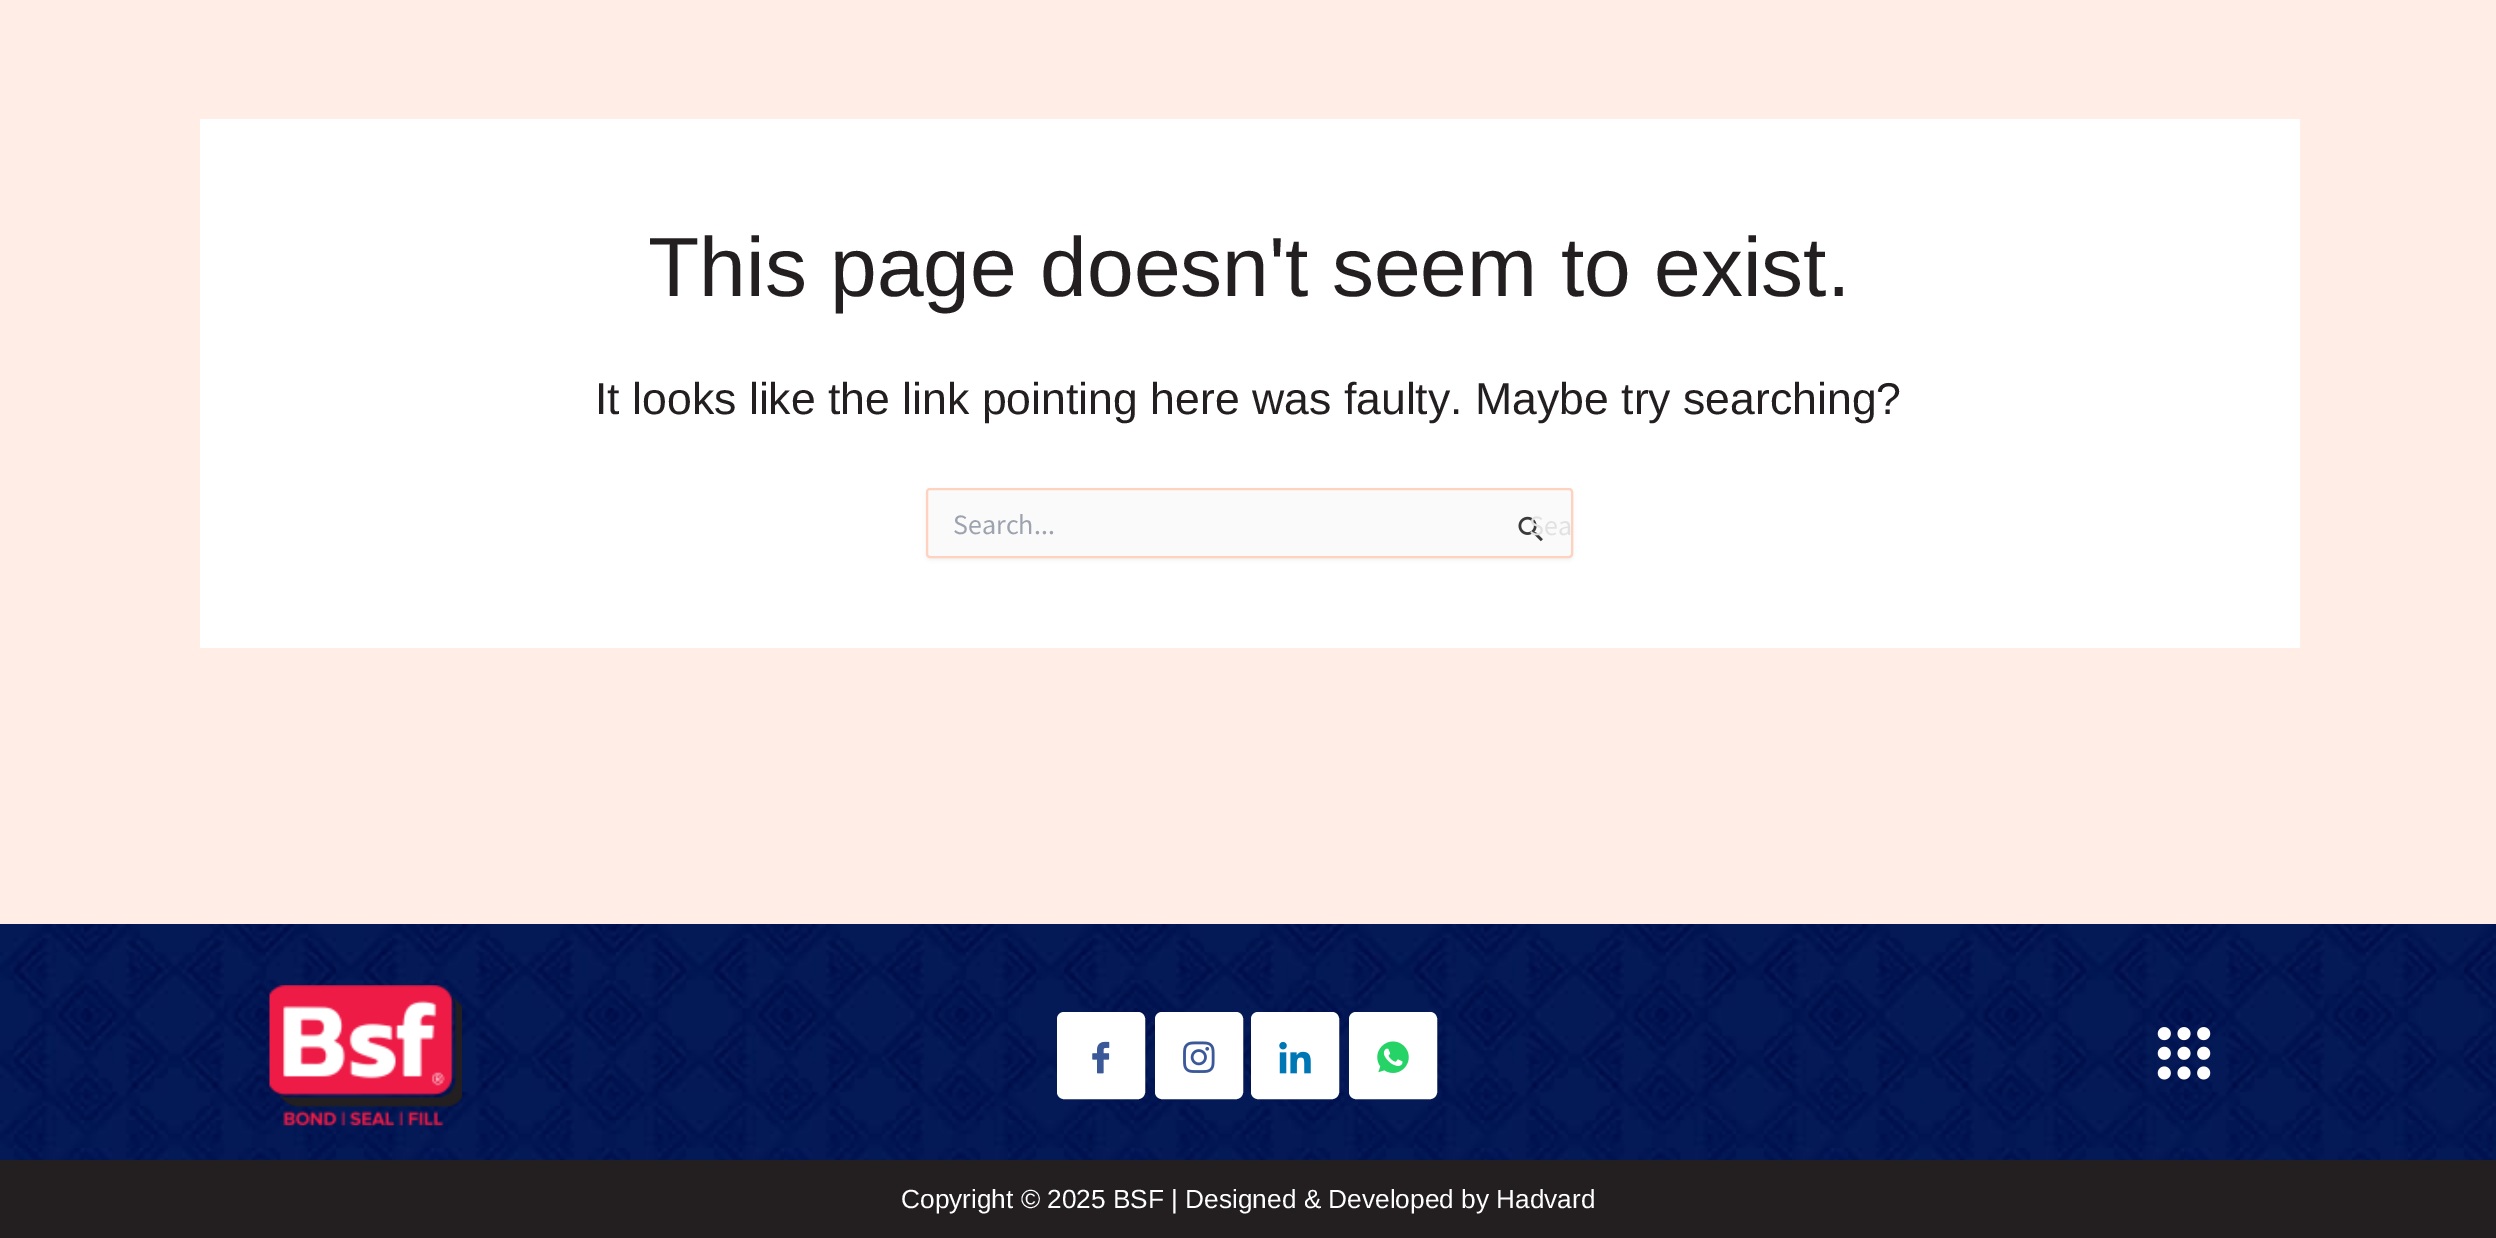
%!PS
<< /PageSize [2496 1238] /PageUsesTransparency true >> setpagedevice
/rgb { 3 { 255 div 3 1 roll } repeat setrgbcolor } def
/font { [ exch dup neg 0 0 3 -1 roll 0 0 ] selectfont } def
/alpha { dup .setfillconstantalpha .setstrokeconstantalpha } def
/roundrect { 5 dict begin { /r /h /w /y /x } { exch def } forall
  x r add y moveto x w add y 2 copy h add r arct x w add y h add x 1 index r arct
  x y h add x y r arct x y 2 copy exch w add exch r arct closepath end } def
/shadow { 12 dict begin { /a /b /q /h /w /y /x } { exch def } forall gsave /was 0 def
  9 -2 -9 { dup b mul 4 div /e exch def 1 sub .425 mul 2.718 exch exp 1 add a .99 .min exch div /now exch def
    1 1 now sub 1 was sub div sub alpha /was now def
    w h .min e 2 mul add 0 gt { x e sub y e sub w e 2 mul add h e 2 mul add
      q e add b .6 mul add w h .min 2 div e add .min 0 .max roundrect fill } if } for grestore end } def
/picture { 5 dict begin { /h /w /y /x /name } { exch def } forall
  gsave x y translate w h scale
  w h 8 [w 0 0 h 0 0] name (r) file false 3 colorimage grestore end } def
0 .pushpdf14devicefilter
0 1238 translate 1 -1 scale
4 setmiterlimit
255 237 230 rgb
0 0 2496 1238 rectfill
255 255 255 rgb
200 119 2100 529 rectfill
0 0 0 rgb
926 490 647 70 4 2 0.05 shadow
250 250 250 rgb
927 489 645 68 3 roundrect gsave fill grestore
255 209 191 rgb
2 setlinewidth
stroke
(img/1.rgb) 1518 516 25 26 picture
(img/2.rgb) 0 924 2496 236 picture
(img/3.rgb) 269 985 193 141 picture
255 255 255 rgb
1058 1013 86 85 6 roundrect gsave fill grestore
stroke
(img/4.rgb) 1092 1041 18 33 picture
1156 1013 86 85 6 roundrect gsave fill grestore
stroke
(img/5.rgb) 1183 1041 32 32 picture
1252 1013 86 85 6 roundrect gsave fill grestore
stroke
(img/6.rgb) 1279 1041 32 33 picture
1350 1013 86 85 6 roundrect gsave fill grestore
stroke
(img/7.rgb) 1377 1041 32 32 picture
(img/8.rgb) 2157 1027 54 53 picture
35 31 32 rgb
0 1160 2496 78 rectfill
/LiberationSans-Regular 84 font
648 296 moveto (This page doesn't seem to exist.) show
/LiberationSans-Regular 44.6 font
595 414 moveto (It looks like the link pointing here was faulty. Maybe try searching?) show
/SourceSansPro-Regular 28 font
156 163 175 rgb
953 534 moveto (Search...) show
225 225 225 rgb
1529 535 moveto (Sea) show
/LiberationSans-Regular 26.25 font
255 255 255 rgb
901 1208 moveto (Copyright © 2025 BSF | Designed & Developed by Hadvard) show
.poppdf14devicefilter showpage
